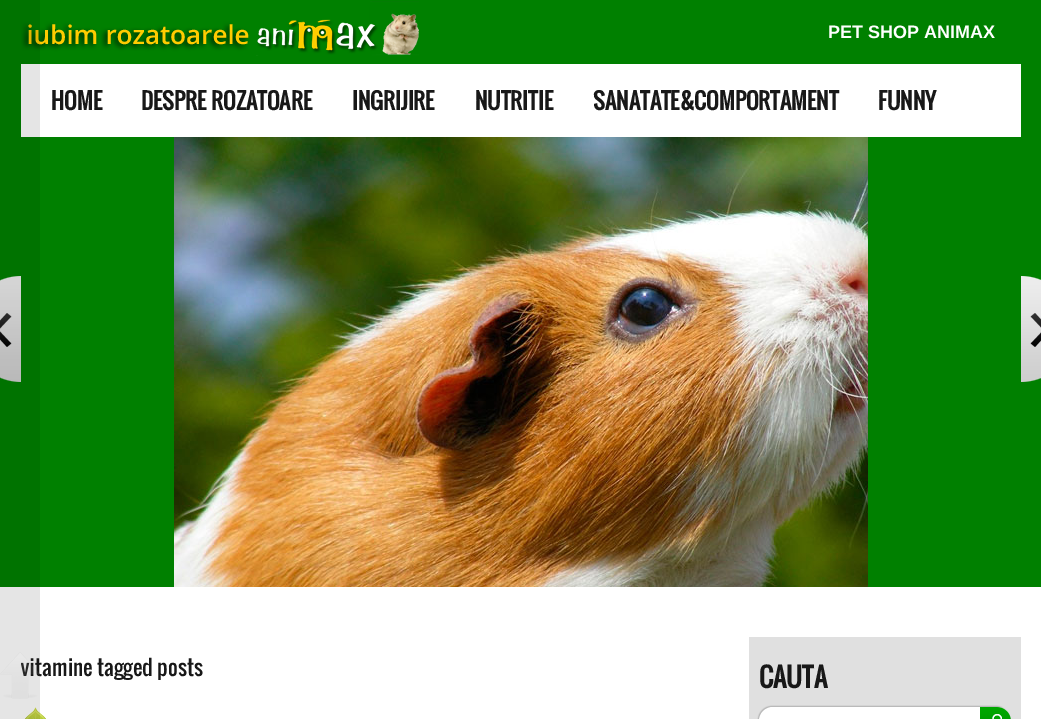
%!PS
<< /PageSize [1041 719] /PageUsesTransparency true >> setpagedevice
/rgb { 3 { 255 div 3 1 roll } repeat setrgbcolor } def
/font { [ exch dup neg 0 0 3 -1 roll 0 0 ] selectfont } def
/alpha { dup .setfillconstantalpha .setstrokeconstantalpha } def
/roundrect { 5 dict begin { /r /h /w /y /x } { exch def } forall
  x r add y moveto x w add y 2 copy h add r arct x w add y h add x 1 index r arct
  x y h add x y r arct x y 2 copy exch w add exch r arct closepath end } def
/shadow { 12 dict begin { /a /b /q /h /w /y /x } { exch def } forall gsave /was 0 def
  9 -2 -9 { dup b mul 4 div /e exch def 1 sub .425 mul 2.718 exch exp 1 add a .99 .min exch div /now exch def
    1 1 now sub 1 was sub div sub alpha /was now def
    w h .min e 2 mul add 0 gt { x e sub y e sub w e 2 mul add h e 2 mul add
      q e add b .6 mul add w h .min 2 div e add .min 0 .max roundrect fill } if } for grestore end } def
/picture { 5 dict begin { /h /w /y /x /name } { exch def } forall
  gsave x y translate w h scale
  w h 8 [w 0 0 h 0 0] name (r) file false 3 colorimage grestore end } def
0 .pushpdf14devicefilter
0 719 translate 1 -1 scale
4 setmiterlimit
255 255 255 rgb
0 0 1041 719 rectfill
0 128 0 rgb
0 0 1041 587 rectfill
(img/2.rgb) 21 1 398 55 picture
255 255 255 rgb
21 64 1000 73 rectfill
(img/4.rgb) 0 276 21 106 picture
(img/6.rgb) 25 707 21 12 picture
0.1 alpha
0 0 0 rgb
0 0 40 719 rectfill
1 alpha
(img/3.rgb) 174 137 694 450 picture
(img/5.rgb) 1021 276 20 106 picture
224 224 224 rgb
749 637 272 82 rectfill
180 180 180 rgb
758 706 252 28 14 0.5 1 shadow
255 255 255 rgb
759 707 252 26 14 roundrect fill
(img/7.rgb) 980 707 31 12 picture
/LiberationSans-Bold 18 font
828 38 moveto (PET SHOP ANIMAX) show
/Oswald-Bold 22 font
24 24 24 rgb
[
  [(HOME) 51 110]
  [(DESPRE ROZATOARE) 141 110]
  [(INGRIJIRE) 352 110]
  [(NUTRITIE) 475 110]
  [(SANATATE&COMPORTAMENT) 593 110]
  [(FUNNY) 878 110]
] { aload pop moveto show } forall
/Oswald-Regular 21 font
21 676 moveto (vitamine tagged posts) show
(img/1.rgb) 0 652 40 47 picture
/Oswald-Bold 26 font
759 688 moveto (CAUTA) show
.poppdf14devicefilter showpage
